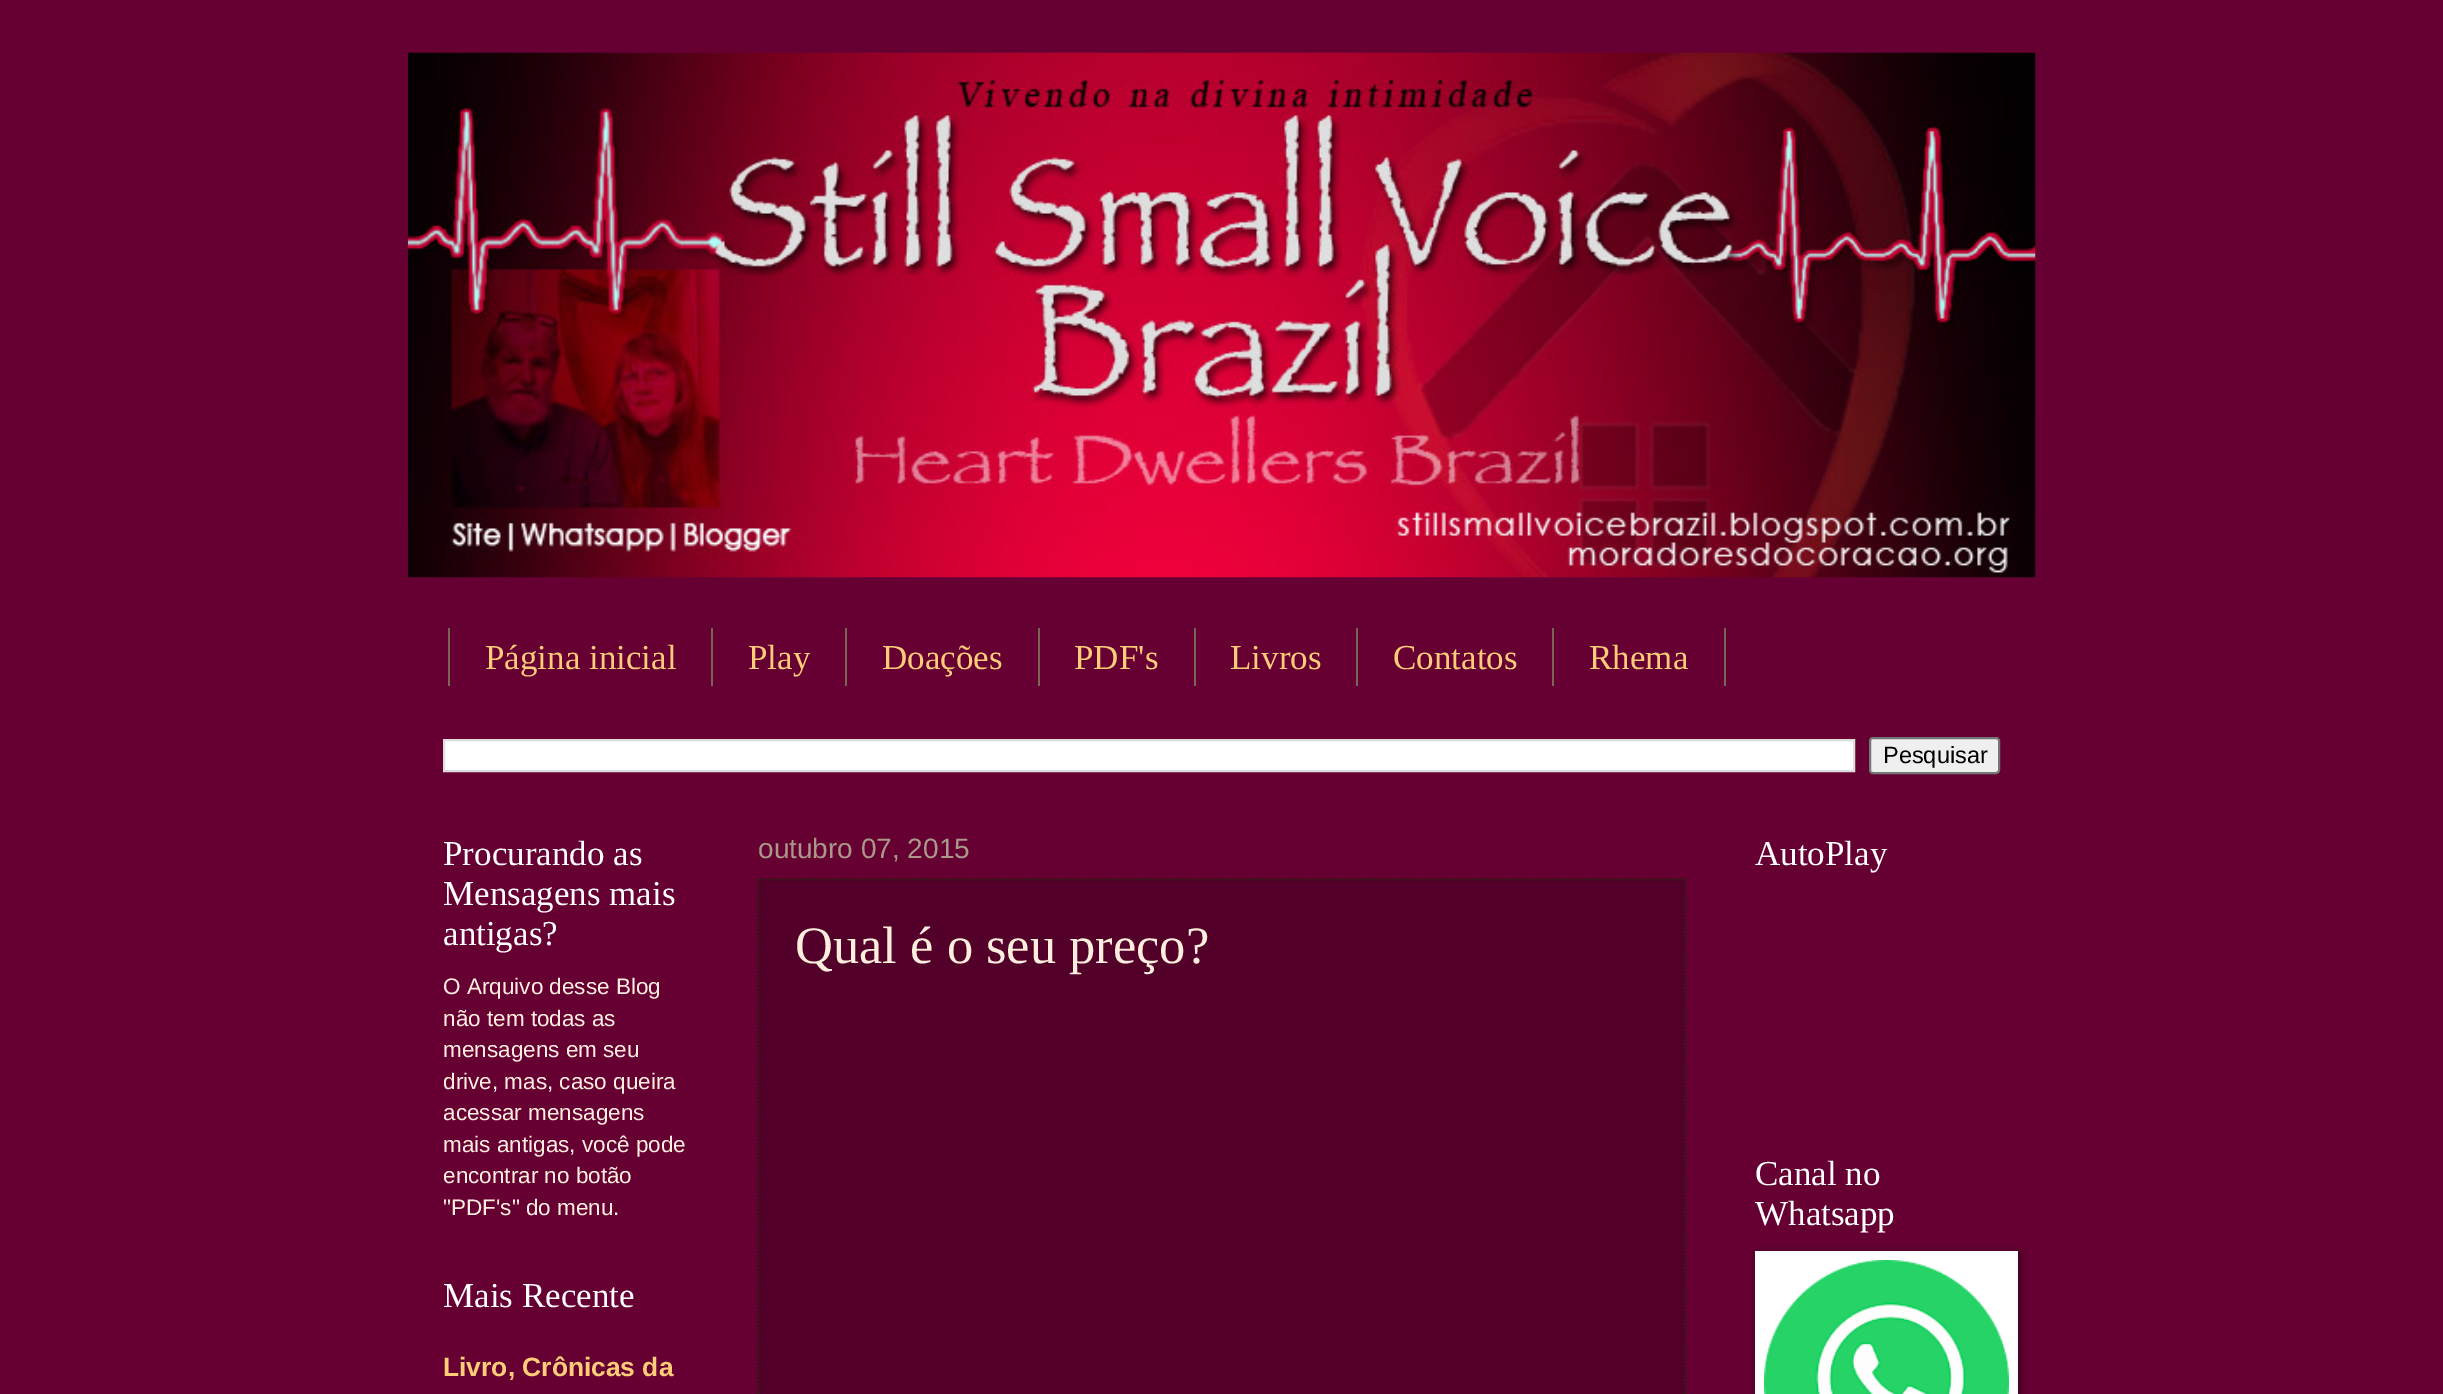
%!PS
<< /PageSize [2443 1394] /PageUsesTransparency true >> setpagedevice
/rgb { 3 { 255 div 3 1 roll } repeat setrgbcolor } def
/font { [ exch dup neg 0 0 3 -1 roll 0 0 ] selectfont } def
/alpha { dup .setfillconstantalpha .setstrokeconstantalpha } def
/roundrect { 5 dict begin { /r /h /w /y /x } { exch def } forall
  x r add y moveto x w add y 2 copy h add r arct x w add y h add x 1 index r arct
  x y h add x y r arct x y 2 copy exch w add exch r arct closepath end } def
/shadow { 12 dict begin { /a /b /q /h /w /y /x } { exch def } forall gsave /was 0 def
  9 -2 -9 { dup b mul 4 div /e exch def 1 sub .425 mul 2.718 exch exp 1 add a .99 .min exch div /now exch def
    1 1 now sub 1 was sub div sub alpha /was now def
    w h .min e 2 mul add 0 gt { x e sub y e sub w e 2 mul add h e 2 mul add
      q e add b .6 mul add w h .min 2 div e add .min 0 .max roundrect fill } if } for grestore end } def
/picture { 5 dict begin { /h /w /y /x /name } { exch def } forall
  gsave x y translate w h scale
  w h 8 [w 0 0 h 0 0] name (r) file false 3 colorimage grestore end } def
0 .pushpdf14devicefilter
0 1394 translate 1 -1 scale
4 setmiterlimit
102 0 51 rgb
0 0 2443 1394 rectfill
(img/1.rgb) 407 52 1629 526 picture
[
  [711 628 2 58 119 102 85]
  [448 628 2 58 119 102 85]
  [845 628 2 58 119 102 85]
  [1038 628 2 58 119 102 85]
  [1194 628 2 58 119 102 85]
  [1356 628 2 58 119 102 85]
  [1552 628 2 58 119 102 85]
  [1724 628 2 58 119 102 85]
] { aload pop rgb rectfill } forall
255 255 255 rgb
444 740 moveto 1854 740 lineto 1854 771 lineto 444 771 lineto closepath gsave fill grestore
221 221 221 rgb
2 setlinewidth
stroke
239 239 239 rgb
1870 738 129 35 3 roundrect gsave fill grestore
118 118 118 rgb
stroke
82 0 41 rgb
757 878 929 516 rectfill
51 34 17 rgb
1.8 setlinewidth
[1.75 1.75] 0 setdash
758 879.5 moveto 1685 879.5 lineto stroke
1684.5 878.5 moveto 1684.5 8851.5 lineto stroke
758.5 878.5 moveto 758.5 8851.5 lineto stroke
0 0 0 rgb
1757 1253 263 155 0 4.5 0.5 shadow
255 255 255 rgb
1755 1251 263 143 rectfill
(img/2.rgb) 1764 1260 245 134 picture
/LiberationSerif-Regular 35 font
255 204 119 rgb
[
  [(Página inicial) 485 669]
  [(Play) 748 669]
  [(Doações) 882 669]
  [(PDF's) 1074 669]
  [(Livros) 1230 669]
  [(Contatos) 1393 669]
  [(Rhema) 1589 669]
] { aload pop moveto show } forall
/LiberationSans-Regular 23.5 font
0 0 0 rgb
1883 763 moveto (Pesquisar) show
/LiberationSerif-Regular 35 font
255 255 255 rgb
[
  [(Procurando as) 443 865]
  [(Mensagens mais) 443 905]
  [(antigas?) 443 945]
] { aload pop moveto show } forall
/LiberationSans-Regular 22.5 font
255 238 221 rgb
[
  [(O Arquivo desse Blog) 443 994]
  [(não tem todas as) 443 1026]
  [(mensagens em seu) 443 1057]
  [(drive, mas, caso queira) 443 1089]
  [(acessar mensagens) 443 1120]
  [(mais antigas, você pode) 443 1152]
  [(encontrar no botão) 443 1183]
  [("PDF's" do menu.) 443 1215]
] { aload pop moveto show } forall
/LiberationSerif-Regular 35 font
255 255 255 rgb
443 1307 moveto (Mais Recente) show
/LiberationSans-Bold 26.4 font
255 204 119 rgb
443 1376 moveto (Livro, Crônicas da) show
/LiberationSans-Regular 28 font
170 153 136 rgb
758 858 moveto (outubro 07, 2015) show
/LiberationSerif-Regular 52.5 font
255 238 221 rgb
795 963 moveto (Qual é o seu preço?) show
/LiberationSerif-Regular 35 font
255 255 255 rgb
[
  [(AutoPlay) 1755 865]
  [(Canal no) 1755 1185]
  [(Whatsapp) 1755 1225]
] { aload pop moveto show } forall
.poppdf14devicefilter showpage
